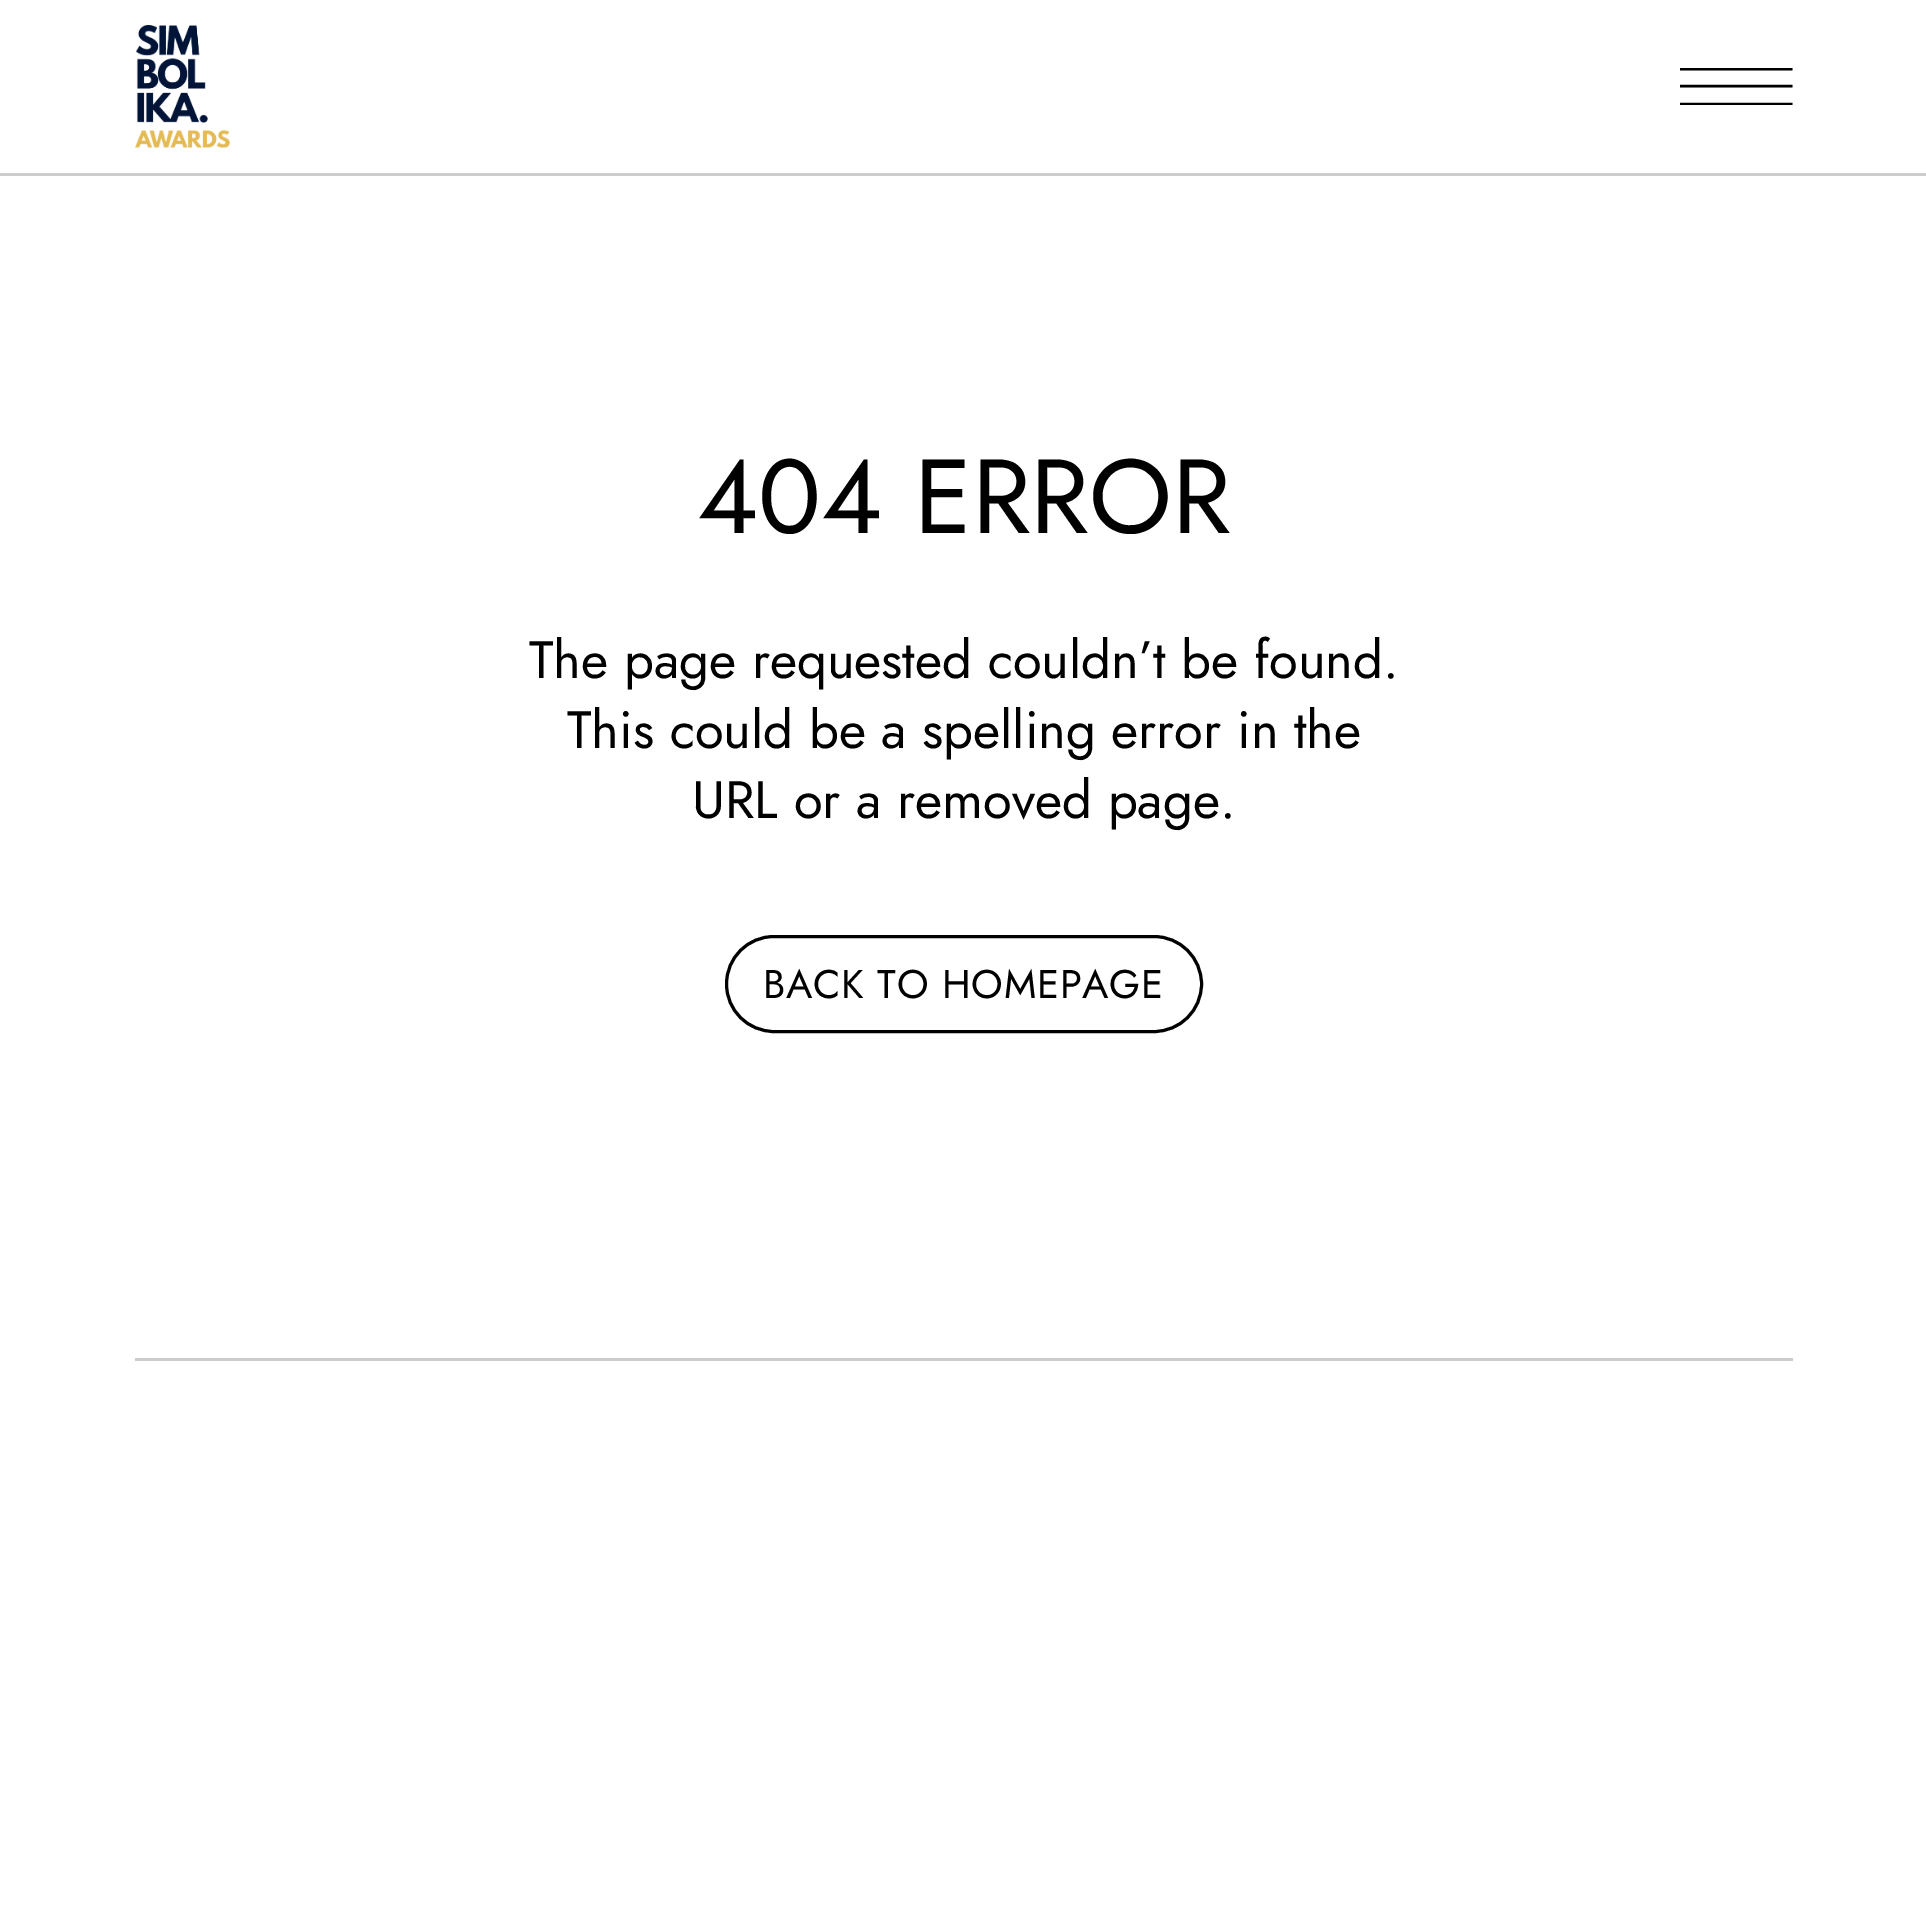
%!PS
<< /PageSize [1926 1918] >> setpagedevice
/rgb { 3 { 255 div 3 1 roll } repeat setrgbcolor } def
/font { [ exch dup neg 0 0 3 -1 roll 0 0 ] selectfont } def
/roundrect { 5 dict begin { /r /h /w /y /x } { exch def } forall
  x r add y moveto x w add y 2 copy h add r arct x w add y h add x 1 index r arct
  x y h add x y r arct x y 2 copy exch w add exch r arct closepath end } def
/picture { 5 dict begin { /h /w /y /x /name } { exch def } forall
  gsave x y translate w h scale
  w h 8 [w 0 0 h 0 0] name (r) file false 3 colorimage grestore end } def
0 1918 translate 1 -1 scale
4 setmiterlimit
255 255 255 rgb
0 0 1926 1918 rectfill
204 204 204 rgb
0 173 1926 3 rectfill
(img/1.rgb) 135 25 95 123 picture
gsave
1680 68 113 37 rectclip
0 0 0 rgb
2.5 setlinewidth
1680 69 moveto 1792.5 69 lineto stroke
grestore
0 0 0 rgb
2.5 setlinewidth
1680 86 moveto 1792.5 86 lineto stroke
gsave
1680 68 113 37 rectclip
1680 104 moveto 1792.5 104 lineto stroke
grestore
3 setlinewidth
726.5 936.5 475 95 47.5 roundrect stroke
204 204 204 rgb
135 1358 1658 3 rectfill
/Jost-Regular 105 font
0 0 0 rgb
697 533 moveto (404 ERROR) show
/Jost-Regular 52.5 font
[
  [(The page requested couldn’t be found.) 529 678]
  [(This could be a spelling error in the) 567 748]
  [(URL or a removed page.) 692 818]
] { aload pop moveto show } forall
/Jost-Regular 40 font
763 998 moveto 0.75 0 (BACK TO HOMEPAGE) ashow
showpage
